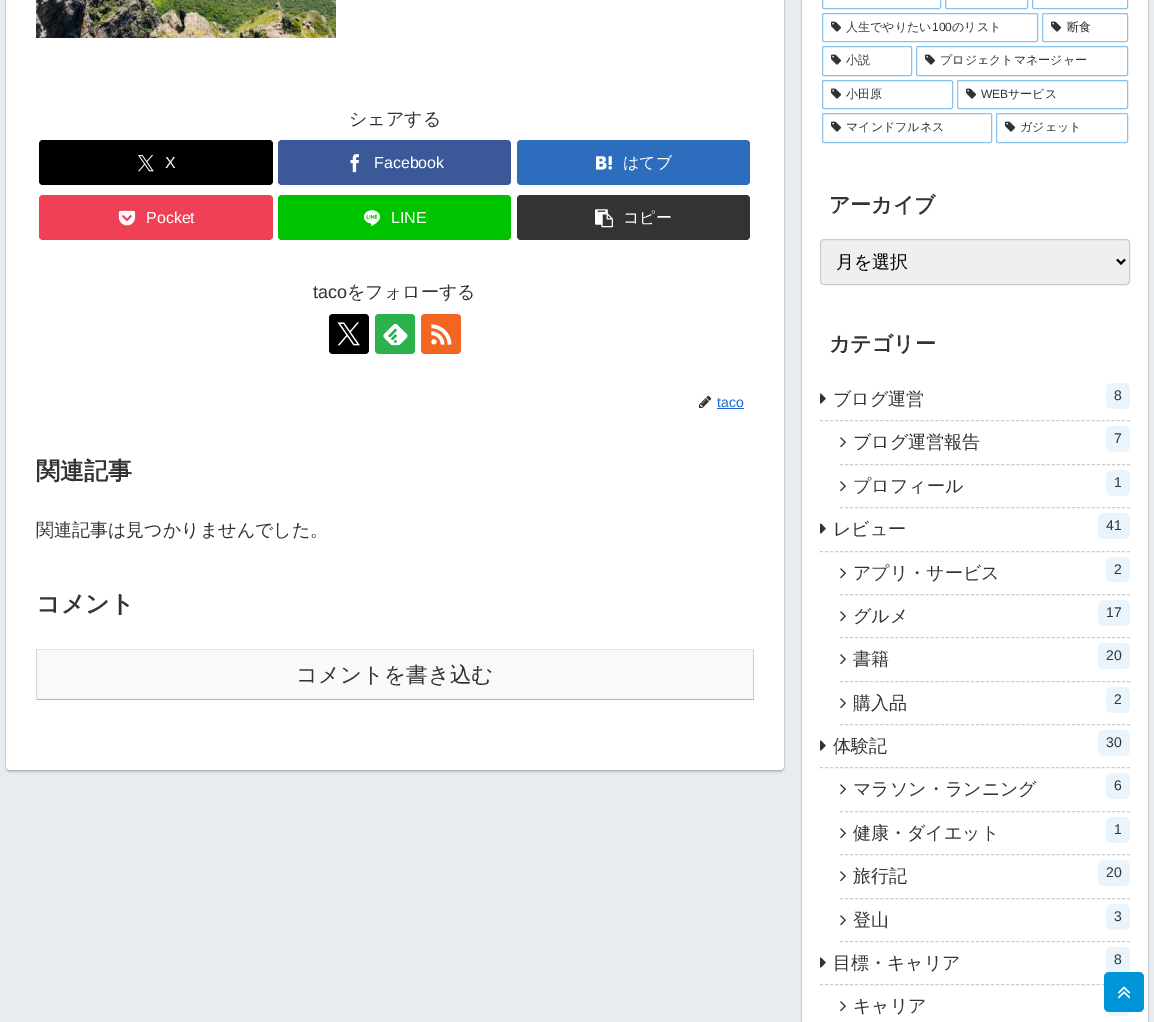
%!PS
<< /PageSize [1154 1022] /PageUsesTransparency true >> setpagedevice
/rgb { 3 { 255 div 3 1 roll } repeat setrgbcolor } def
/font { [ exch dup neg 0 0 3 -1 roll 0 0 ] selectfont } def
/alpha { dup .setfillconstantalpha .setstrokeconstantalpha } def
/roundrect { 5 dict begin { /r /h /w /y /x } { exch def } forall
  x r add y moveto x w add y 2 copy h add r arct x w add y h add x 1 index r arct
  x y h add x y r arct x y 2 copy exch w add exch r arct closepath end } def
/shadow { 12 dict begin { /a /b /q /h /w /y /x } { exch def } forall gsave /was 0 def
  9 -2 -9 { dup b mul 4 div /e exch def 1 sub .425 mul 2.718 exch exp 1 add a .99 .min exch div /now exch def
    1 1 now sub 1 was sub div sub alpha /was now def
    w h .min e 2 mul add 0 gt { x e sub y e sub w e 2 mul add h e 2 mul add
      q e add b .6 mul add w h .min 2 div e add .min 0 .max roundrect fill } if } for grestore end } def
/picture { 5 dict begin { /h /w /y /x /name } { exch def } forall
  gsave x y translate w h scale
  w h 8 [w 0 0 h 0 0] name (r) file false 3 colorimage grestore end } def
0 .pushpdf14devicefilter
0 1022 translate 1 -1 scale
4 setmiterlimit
230 236 240 rgb
0 0 1154 1022 rectfill
212 217 221 rgb
5.5 -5.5 779 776 4.5 roundrect stroke
0 0 0 rgb
6 -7 778 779 4 1 0.16 shadow
255 255 255 rgb
6 -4 778 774 4 roundrect fill
(img/1.rgb) 36 0 300 38 picture
0 0 0 rgb
39 140 234 45 4 roundrect fill
(img/2.rgb) 138 155 16 17 picture
59 89 152 rgb
278 140 233 45 4 roundrect fill
(img/3.rgb) 350 154 9 19 picture
44 110 189 rgb
517 140 233 45 4 roundrect fill
(img/4.rgb) 596 156 16 14 picture
239 64 86 rgb
39 195 234 45 4 roundrect fill
(img/5.rgb) 118 210 18 16 picture
0 195 0 rgb
278 195 233 45 4 roundrect fill
(img/6.rgb) 363 210 18 16 picture
51 51 51 rgb
517 195 233 45 4 roundrect fill
(img/7.rgb) 595 209 18 19 picture
0 0 0 rgb
329 314 40 40 4 roundrect fill
(img/8.rgb) 337 322 23 24 picture
43 178 76 rgb
375 314 40 40 4 roundrect fill
(img/9.rgb) 383 323 25 23 picture
242 101 34 rgb
421 314 40 40 4 roundrect fill
(img/10.rgb) 431 324 21 21 picture
(img/11.rgb) 699 395 13 13 picture
[
  [717 408 27 1 25 103 210]
  [37 650 716 49 249 249 249]
  [36 649 718 1 227 227 227]
  [753 649 1 51 206 206 206]
  [36 699 718 1 180 180 180]
  [36 649 1 51 214 214 214]
] { aload pop rgb rectfill } forall
212 217 221 rgb
801.5 -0.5 347 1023 rectstroke
0 0 0 rgb
802 -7 346 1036 4 1 0.16 shadow
255 255 255 rgb
802 0 346 1022 rectfill
137 195 235 rgb
822.5 -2.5 118 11 1.5 roundrect stroke
945.5 -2.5 82 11 1.5 roundrect stroke
1032.5 -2.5 95 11 1.5 roundrect stroke
822.5 13.5 215 28 1.5 roundrect stroke
(img/12.rgb) 831 21 11 11 picture
1042.5 13.5 85 28 1.5 roundrect stroke
(img/12.rgb) 1051 21 11 11 picture
822.5 46.5 89 29 1.5 roundrect stroke
(img/12.rgb) 831 54 11 11 picture
916.5 46.5 211 29 1.5 roundrect stroke
(img/12.rgb) 925 54 11 11 picture
822.5 80.5 130 28 1.5 roundrect stroke
(img/12.rgb) 831 88 11 11 picture
957.5 80.5 170 28 1.5 roundrect stroke
(img/12.rgb) 966 88 11 11 picture
822.5 113.5 169 29 1.5 roundrect stroke
(img/12.rgb) 831 121 11 11 picture
996.5 113.5 131 29 1.5 roundrect stroke
(img/12.rgb) 1005 121 11 11 picture
239 239 239 rgb
820.5 239.5 309 45 3.5 roundrect gsave fill grestore
204 204 204 rgb
stroke
0 0 0 rgb
2 setlinewidth
1117 259.5 moveto 1121 263.5 lineto 1125 259.5 lineto stroke
204 204 204 rgb
1 setlinewidth
[3 2.03] 0 setdash
820 420.5 moveto 1130 420.5 lineto stroke
(img/13.rgb) 820 393 6 11 picture
234 244 252 rgb
1106 383 24 26 6 roundrect fill
204 204 204 rgb
[3 2.04] 0 setdash
840 464.5 moveto 1130 464.5 lineto stroke
(img/14.rgb) 840 437 6 11 picture
234 244 252 rgb
1106 426 24 26 6 roundrect fill
204 204 204 rgb
840 507.5 moveto 1130 507.5 lineto stroke
(img/14.rgb) 840 481 6 11 picture
234 244 252 rgb
1106 470 24 26 6 roundrect fill
204 204 204 rgb
[3 2.03] 0 setdash
820 551.5 moveto 1130 551.5 lineto stroke
(img/13.rgb) 820 523 6 11 picture
234 244 252 rgb
1098 513 32 26 6 roundrect fill
204 204 204 rgb
[3 2.04] 0 setdash
840 594.5 moveto 1130 594.5 lineto stroke
(img/14.rgb) 840 568 6 11 picture
234 244 252 rgb
1106 557 24 25 6 roundrect fill
204 204 204 rgb
840 637.5 moveto 1130 637.5 lineto stroke
(img/14.rgb) 840 611 6 11 picture
234 244 252 rgb
1098 600 32 26 6 roundrect fill
204 204 204 rgb
840 681.5 moveto 1130 681.5 lineto stroke
(img/14.rgb) 840 654 6 11 picture
234 244 252 rgb
1098 643 32 26 6 roundrect fill
204 204 204 rgb
840 724.5 moveto 1130 724.5 lineto stroke
(img/14.rgb) 840 698 6 11 picture
234 244 252 rgb
1106 687 24 26 6 roundrect fill
204 204 204 rgb
[3 2.03] 0 setdash
820 767.5 moveto 1130 767.5 lineto stroke
(img/13.rgb) 820 740 6 11 picture
234 244 252 rgb
1098 730 32 26 6 roundrect fill
204 204 204 rgb
[3 2.04] 0 setdash
840 811.5 moveto 1130 811.5 lineto stroke
(img/14.rgb) 840 784 6 11 picture
234 244 252 rgb
1106 773 24 26 6 roundrect fill
204 204 204 rgb
840 854.5 moveto 1130 854.5 lineto stroke
(img/14.rgb) 840 828 6 11 picture
234 244 252 rgb
1106 817 24 26 6 roundrect fill
204 204 204 rgb
840 898.5 moveto 1130 898.5 lineto stroke
(img/14.rgb) 840 871 6 11 picture
234 244 252 rgb
1098 860 32 26 6 roundrect fill
204 204 204 rgb
840 941.5 moveto 1130 941.5 lineto stroke
(img/14.rgb) 840 915 6 11 picture
234 244 252 rgb
1106 904 24 26 6 roundrect fill
204 204 204 rgb
[3 2.03] 0 setdash
820 984.5 moveto 1130 984.5 lineto stroke
(img/13.rgb) 820 957 6 11 picture
234 244 252 rgb
1106 947 24 26 6 roundrect fill
(img/14.rgb) 840 1001 6 11 picture
1106 990 24 26 6 roundrect fill
0 149 217 rgb
1104 972 40 40 5 roundrect fill
(img/15.rgb) 1118 986 13 13 picture
/WenQuanYiZenHei-Medium 18 font
51 51 51 rgb
349 125 moveto (シェアする) show
/LiberationSans-Regular 16 font
255 255 255 rgb
165 168 moveto (X) show
374 168 moveto (Facebook) show
/WenQuanYiZenHei-Medium 16 font
623 168 moveto (はてブ) show
/LiberationSans-Regular 16 font
146 223 moveto (Pocket) show
391 223 moveto (LINE) show
/WenQuanYiZenHei-Medium 16 font
623 223 moveto (コピー) show
/LiberationSans-Regular 18 font
51 51 51 rgb
313 298 moveto (taco) show
/WenQuanYiZenHei-Medium 18 font
347 298 moveto (をフォローする) show
/LiberationSans-Regular 14 font
25 103 210 rgb
717 407 moveto (taco) show
/WenQuanYiZenHei-Bold 24 font
51 51 51 rgb
36 479 moveto (関連記事) show
/WenQuanYiZenHei-Medium 18 font
36 536 moveto (関連記事は見つかりませんでした。) show
/WenQuanYiZenHei-Bold 24 font
36 612 moveto (コメント) show
/WenQuanYiZenHei-Medium 21.5 font
296 682 moveto (コメントを書き込む) show
/WenQuanYiZenHei-Medium 12 font
846 31 moveto (人生でやりたい) show
/LiberationSans-Regular 12 font
932 31 moveto (100) show
/WenQuanYiZenHei-Medium 12 font
[
  [(のリスト) 952 31]
  [(断食) 1067 31]
  [(小説) 846 64]
  [(プロジェクトマネージャー) 940 64]
  [(小田原) 846 98]
] { aload pop moveto show } forall
/LiberationSans-Regular 12 font
981 98 moveto (WEB) show
/WenQuanYiZenHei-Medium 12 font
[
  [(サービス) 1008 98]
  [(マインドフルネス) 846 131]
  [(ガジェット) 1020 131]
] { aload pop moveto show } forall
/WenQuanYiZenHei-Bold 21 font
829 212 moveto (アーカイブ) show
/WenQuanYiZenHei-Medium 18 font
0 0 0 rgb
836 268 moveto (月を選択) show
/WenQuanYiZenHei-Bold 21 font
51 51 51 rgb
829 351 moveto (カテゴリー) show
/WenQuanYiZenHei-Medium 18 font
833 405 moveto (ブログ運営) show
/LiberationSans-Regular 14 font
1114 400 moveto (8) show
/WenQuanYiZenHei-Medium 18 font
853 448 moveto (ブログ運営報告) show
/LiberationSans-Regular 14 font
1114 443 moveto (7) show
/WenQuanYiZenHei-Medium 18 font
853 492 moveto (プロフィール) show
/LiberationSans-Regular 14 font
1114 487 moveto (1) show
/WenQuanYiZenHei-Medium 18 font
833 535 moveto (レビュー) show
/LiberationSans-Regular 14 font
1106 530 moveto (41) show
/WenQuanYiZenHei-Medium 18 font
853 579 moveto (アプリ・サービス) show
/LiberationSans-Regular 14 font
1114 574 moveto (2) show
/WenQuanYiZenHei-Medium 18 font
853 622 moveto (グルメ) show
/LiberationSans-Regular 14 font
1106 617 moveto (17) show
/WenQuanYiZenHei-Medium 18 font
853 665 moveto (書籍) show
/LiberationSans-Regular 14 font
1106 660 moveto (20) show
/WenQuanYiZenHei-Medium 18 font
853 709 moveto (購入品) show
/LiberationSans-Regular 14 font
1114 704 moveto (2) show
/WenQuanYiZenHei-Medium 18 font
833 752 moveto (体験記) show
/LiberationSans-Regular 14 font
1106 747 moveto (30) show
/WenQuanYiZenHei-Medium 18 font
853 795 moveto (マラソン・ランニング) show
/LiberationSans-Regular 14 font
1114 790 moveto (6) show
/WenQuanYiZenHei-Medium 18 font
853 839 moveto (健康・ダイエット) show
/LiberationSans-Regular 14 font
1114 834 moveto (1) show
/WenQuanYiZenHei-Medium 18 font
853 882 moveto (旅行記) show
/LiberationSans-Regular 14 font
1106 877 moveto (20) show
/WenQuanYiZenHei-Medium 18 font
853 926 moveto (登山) show
/LiberationSans-Regular 14 font
1114 921 moveto (3) show
/WenQuanYiZenHei-Medium 18 font
833 969 moveto (目標・キャリア) show
/LiberationSans-Regular 14 font
1114 964 moveto (8) show
/WenQuanYiZenHei-Medium 18 font
853 1012 moveto (キャリア) show
.poppdf14devicefilter showpage
